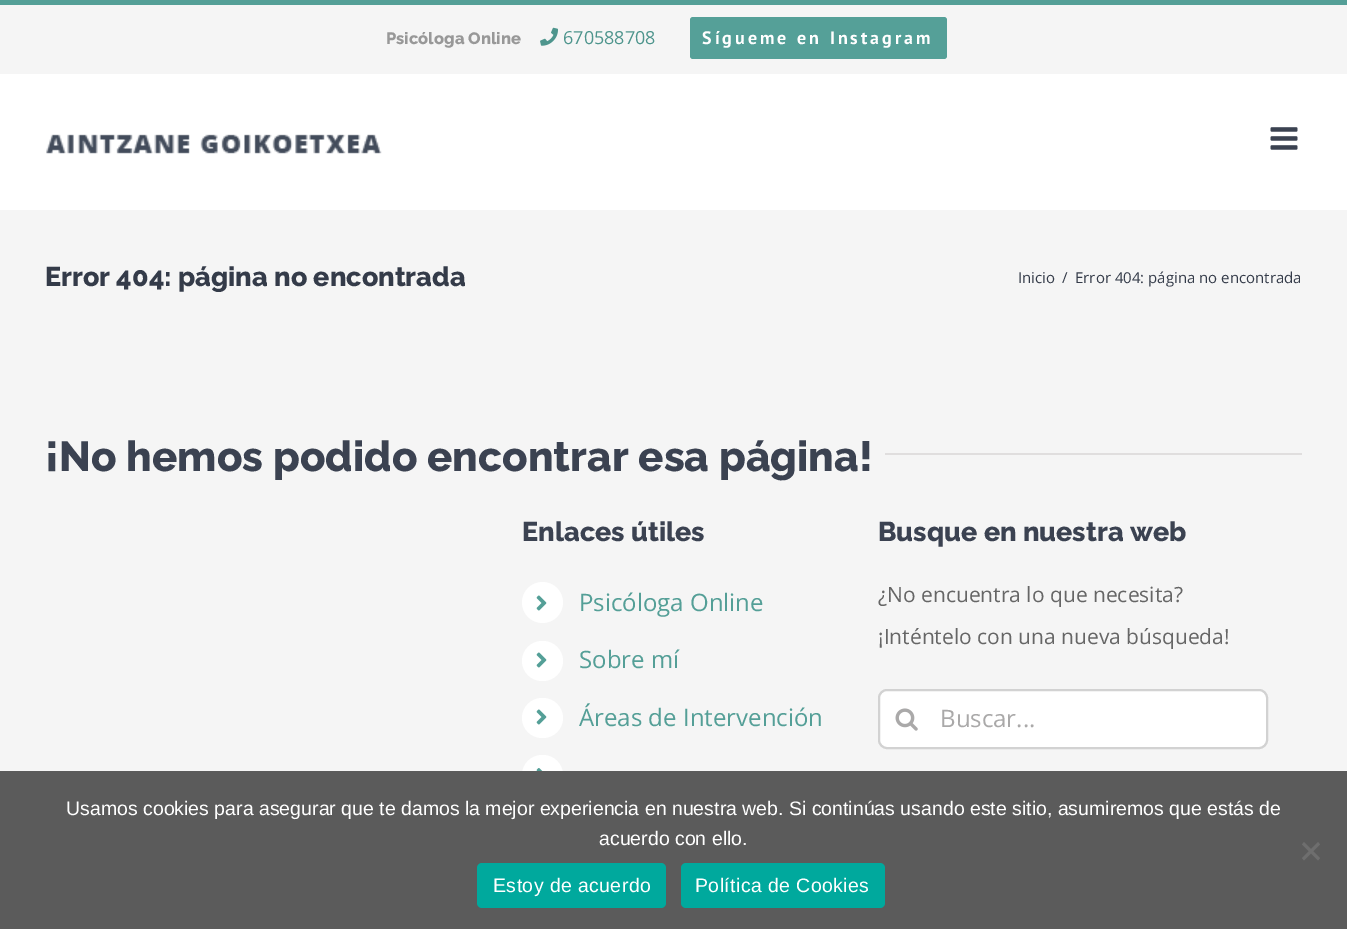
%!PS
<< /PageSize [1347 929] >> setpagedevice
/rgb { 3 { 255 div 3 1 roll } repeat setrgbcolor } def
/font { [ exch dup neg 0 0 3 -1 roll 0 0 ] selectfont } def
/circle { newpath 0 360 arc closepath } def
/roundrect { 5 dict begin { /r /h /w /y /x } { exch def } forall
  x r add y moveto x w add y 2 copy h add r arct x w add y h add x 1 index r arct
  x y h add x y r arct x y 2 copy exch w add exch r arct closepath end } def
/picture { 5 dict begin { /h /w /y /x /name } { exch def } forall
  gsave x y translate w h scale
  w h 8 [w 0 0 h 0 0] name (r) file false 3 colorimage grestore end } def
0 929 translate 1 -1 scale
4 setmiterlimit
245 245 245 rgb
0 0 1347 929 rectfill
84 159 151 rgb
0 0 1347 5 rectfill
(img/1.rgb) 540 27 18 19 picture
85 160 152 rgb
690 17 257 42 3 roundrect fill
255 255 255 rgb
0 74 1347 136 rectfill
(img/2.rgb) 46 134 336 20 picture
(img/3.rgb) 1270 127 28 23 picture
224 222 222 rgb
885 453 417 2 rectfill
255 255 255 rgb
542.5 602.5 20.5 circle fill
(img/4.rgb) 536 595 11 16 picture
522 641 41 40 20 roundrect fill
(img/4.rgb) 536 652 11 16 picture
522 698 41 40 20 roundrect fill
(img/4.rgb) 536 709 11 16 picture
522 755 41 40 20 roundrect fill
(img/5.rgb) 536 768 7 3 picture
879 690 388 58 8 roundrect gsave fill grestore
210 210 210 rgb
2 setlinewidth
stroke
(img/6.rgb) 895 708 23 23 picture
91 91 91 rgb
0 771 1347 158 rectfill
110 110 110 rgb
1318 842 moveto 1320 844.5 lineto 1304 860.5 lineto 1302 858 lineto closepath fill
1302 844.5 moveto 1304 842 lineto 1320 858 lineto 1318 860.5 lineto closepath fill
0 169 157 rgb
477 863 189 45 5 roundrect fill
681 863 204 45 5 roundrect fill
/Raleway-Thin 16.5 font
152 152 152 rgb
386 44 moveto (Psicóloga Online) show
/OpenSans-Regular 18 font
78 149 141 rgb
563 44 moveto (670588708) show
/PTSans-Bold 18 font
255 255 255 rgb
702 44 moveto 3 0 (Sígueme en Instagram) ashow
/Raleway-Thin 27 font
52 59 73 rgb
45 286 moveto (Error 404: página no encontrada) show
/OpenSans-Regular 15 font
[
  [(Inicio) 1018 283]
  [(/) 1062 283]
  [(Error 404: página no encontrada) 1075 283]
] { aload pop moveto show } forall
/Raleway-Thin 42 font
59 66 81 rgb
45 471 moveto (¡No hemos podido encontrar esa página!) show
/Raleway-Thin 27 font
522 541 moveto (Enlaces útiles) show
/OpenSans-Regular 24 font
84 159 151 rgb
[
  [(Psicóloga Online) 579 611]
  [(Sobre mí) 579 668]
  [(Áreas de Intervención) 579 726]
] { aload pop moveto show } forall
/Raleway-Thin 27 font
59 66 81 rgb
878 541 moveto (Busque en nuestra web) show
/OpenSans-Regular 21 font
102 102 102 rgb
878 602 moveto (¿No encuentra lo que necesita?) show
878 644 moveto (¡Inténtelo con una nueva búsqueda!) show
/OpenSans-Regular 24 font
170 169 169 rgb
940 727 moveto (Buscar...) show
/LiberationSans-Regular 19.5 font
255 255 255 rgb
66 815 moveto (Usamos cookies para asegurar que te damos la mejor experiencia en nuestra web. Si continúas usando este sitio, asumiremos que estás de) show
599 845 moveto (acuerdo con ello.) show
493 892 moveto 0.4 0 (Estoy de acuerdo) ashow
695 892 moveto 0.4 0 (Política de Cookies) ashow
showpage
